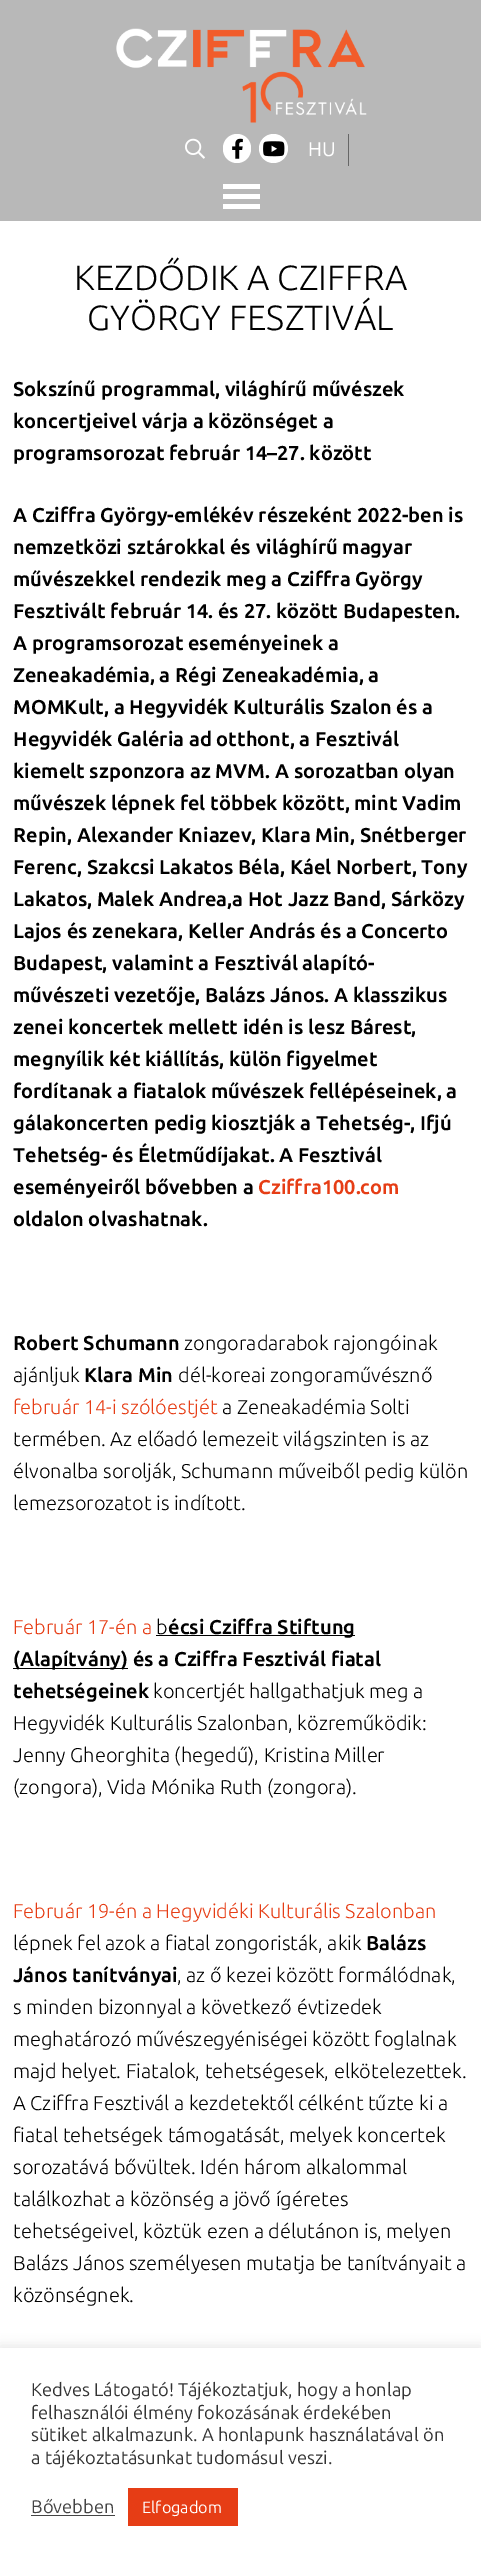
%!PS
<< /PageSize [481 2563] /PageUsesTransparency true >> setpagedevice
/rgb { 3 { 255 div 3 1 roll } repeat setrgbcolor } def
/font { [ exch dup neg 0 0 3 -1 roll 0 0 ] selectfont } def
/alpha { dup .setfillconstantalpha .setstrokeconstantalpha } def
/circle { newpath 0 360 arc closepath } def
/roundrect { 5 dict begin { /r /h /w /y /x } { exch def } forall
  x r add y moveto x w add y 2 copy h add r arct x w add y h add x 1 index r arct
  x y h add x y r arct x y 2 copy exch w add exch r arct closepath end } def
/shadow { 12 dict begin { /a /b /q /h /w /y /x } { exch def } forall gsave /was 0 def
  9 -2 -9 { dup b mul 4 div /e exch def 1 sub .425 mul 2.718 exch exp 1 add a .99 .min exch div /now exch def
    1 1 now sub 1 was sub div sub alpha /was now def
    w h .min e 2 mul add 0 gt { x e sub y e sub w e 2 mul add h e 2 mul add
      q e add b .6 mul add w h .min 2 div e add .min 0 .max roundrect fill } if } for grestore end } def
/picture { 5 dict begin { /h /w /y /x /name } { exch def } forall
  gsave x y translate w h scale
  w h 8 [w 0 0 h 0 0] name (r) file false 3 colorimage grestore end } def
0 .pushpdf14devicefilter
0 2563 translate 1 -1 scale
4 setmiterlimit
255 255 255 rgb
0 0 481 2563 rectfill
184 184 184 rgb
0 0 481 221 rectfill
(img/1.rgb) 116 28 251 95 picture
(img/2.rgb) 185 138 20 21 picture
255 255 255 rgb
223 134 28 29 14 roundrect fill
(img/3.rgb) 232 138 11 21 picture
273.5 148.5 14.5 circle fill
(img/4.rgb) 263 141 22 16 picture
[
  [348 134 1 32 102 102 102]
  [223 204 37 5 255 255 255]
  [223 194 37 5 255 255 255]
  [223 184 37 5 255 255 255]
  [156 1635 199 1 0 0 0]
  [13 1668 115 1 0 0 0]
] { aload pop rgb rectfill } forall
172 171 171 rgb
0 2346 481 217 0 6 0.3 shadow
[
  [0 2348 481 215 255 255 255]
  [31 2515 84 1 68 68 68]
  [128 2488 110 38 230 61 21]
] { aload pop rgb rectfill } forall
/Ubuntu-Regular 20 font
255 255 255 rgb
308 156 moveto (HU) show
/Ubuntu-Light 35 font
0 0 0 rgb
74 290 moveto (KEZDŐDIK A CZIFFRA) show
87 330 moveto (GYÖRGY FESZTIVÁL) show
/Ubuntu-Bold 20 font
[
  [(Sokszínű programmal, világhírű művészek) 13 396]
  [(koncertjeivel várja a közönséget a) 13 428]
  [(programsorozat február 14–27. között) 13 460]
  [(A Cziffra György-emlékév részeként 2022-ben is) 13 522]
  [(nemzetközi sztárokkal és világhírű magyar) 13 554]
  [(művészekkel rendezik meg a Cziffra György) 13 586]
  [(Fesztivált február 14. és 27. között Budapesten.) 13 618]
  [(A programsorozat eseményeinek a) 13 650]
  [(Zeneakadémia, a Régi Zeneakadémia, a) 13 682]
  [(MOMKult, a Hegyvidék Kulturális Szalon és a) 13 714]
  [(Hegyvidék Galéria ad otthont, a Fesztivál) 13 746]
  [(kiemelt szponzora az MVM. A sorozatban olyan) 13 778]
  [(művészek lépnek fel többek között, mint Vadim) 13 810]
  [(Repin, Alexander Kniazev, Klara Min, Snétberger) 13 842]
  [(Ferenc, Szakcsi Lakatos Béla, Káel Norbert, Tony) 13 874]
  [(Lakatos, Malek Andrea,a Hot Jazz Band, Sárközy) 13 906]
  [(Lajos és zenekara, Keller András és a Concerto) 13 938]
  [(Budapest, valamint a Fesztivál alapító-) 13 970]
  [(művészeti vezetője, Balázs János. A klasszikus) 13 1002]
  [(zenei koncertek mellett idén is lesz Bárest,) 13 1034]
  [(megnyílik két kiállítás, külön figyelmet) 13 1066]
  [(fordítanak a fiatalok művészek fellépéseinek, a) 13 1098]
  [(gálakoncerten pedig kiosztják a Tehetség-, Ifjú) 13 1130]
  [(Tehetség- és Életműdíjakat. A Fesztivál) 13 1162]
  [(eseményeiről bővebben a) 13 1194]
] { aload pop moveto show } forall
230 61 21 rgb
258 1194 moveto (Cziffra100.com) show
0 0 0 rgb
13 1226 moveto (oldalon olvashatnak.) show
13 1350 moveto (Robert Schumann) show
/Ubuntu-Light 20 font
184 1350 moveto (zongoradarabok rajongóinak) show
13 1382 moveto (ajánljuk) show
/Ubuntu-Bold 20 font
84 1382 moveto (Klara Min) show
/Ubuntu-Light 20 font
178 1382 moveto (dél-koreai zongoraművésznő) show
230 61 21 rgb
13 1414 moveto (február 14-i szólóestjét) show
0 0 0 rgb
[
  [(a Zeneakadémia Solti) 222 1414]
  [(termében. Az előadó lemezeit világszinten is az) 13 1446]
  [(élvonalba sorolják, Schumann műveiből pedig külön) 13 1478]
  [(lemezsorozatot is indított.) 13 1510]
] { aload pop moveto show } forall
230 61 21 rgb
13 1634 moveto (Február 17-én a) show
0 0 0 rgb
156 1634 moveto (b) show
/Ubuntu-Bold 20 font
[
  [(écsi Cziffra Stiftung) 168 1634]
  [(\(Alapítvány\) és a Cziffra Fesztivál fiatal) 13 1666]
  [(tehetségeinek) 13 1698]
] { aload pop moveto show } forall
/Ubuntu-Light 20 font
[
  [(koncertjét hallgathatjuk meg a) 153 1698]
  [(Hegyvidék Kulturális Szalonban, közreműködik:) 13 1730]
  [(Jenny Gheorghita \(hegedű\), Kristina Miller) 13 1762]
  [(\(zongora\), Vida Mónika Ruth \(zongora\).) 13 1794]
] { aload pop moveto show } forall
230 61 21 rgb
13 1918 moveto (Február 19-én a Hegyvidéki Kulturális Szalonban) show
0 0 0 rgb
13 1950 moveto (lépnek fel azok a fiatal zongoristák, akik) show
/Ubuntu-Bold 20 font
366 1950 moveto (Balázs) show
13 1982 moveto (János tanítványai) show
/Ubuntu-Light 20 font
[
  [(, az ő kezei között formálódnak,) 177 1982]
  [(s minden bizonnyal a következő évtizedek) 13 2014]
  [(meghatározó művészegyéniségei között foglalnak) 13 2046]
  [(majd helyet. Fiatalok, tehetségesek, elkötelezettek.) 13 2078]
  [(A Cziffra Fesztivál a kezdetektől célként tűzte ki a) 13 2110]
  [(fiatal tehetségek támogatását, melyek koncertek) 13 2142]
  [(sorozatává bővültek. Idén három alkalommal) 13 2174]
  [(találkozhat a közönség a jövő ígéretes) 13 2206]
  [(tehetségeivel, köztük ezen a délutánon is, melyen) 13 2238]
  [(Balázs János személyesen mutatja be tanítványait a) 13 2270]
  [(közönségnek.) 13 2302]
] { aload pop moveto show } forall
/Ubuntu-Regular 18.3 font
51 51 51 rgb
[
  [(Kedves Látogató! Tájékoztatjuk, hogy a honlap) 31 2396]
  [(felhasználói élmény fokozásának érdekében) 31 2419]
  [(sütiket alkalmazunk. A honlapunk használatával ön) 31 2441]
  [(a tájékoztatásunkat tudomásul veszi.) 31 2464]
] { aload pop moveto show } forall
68 68 68 rgb
31 2513 moveto (Bővebben) show
/Ubuntu-Regular 16.25 font
255 255 255 rgb
142 2513 moveto (Elfogadom) show
.poppdf14devicefilter showpage
